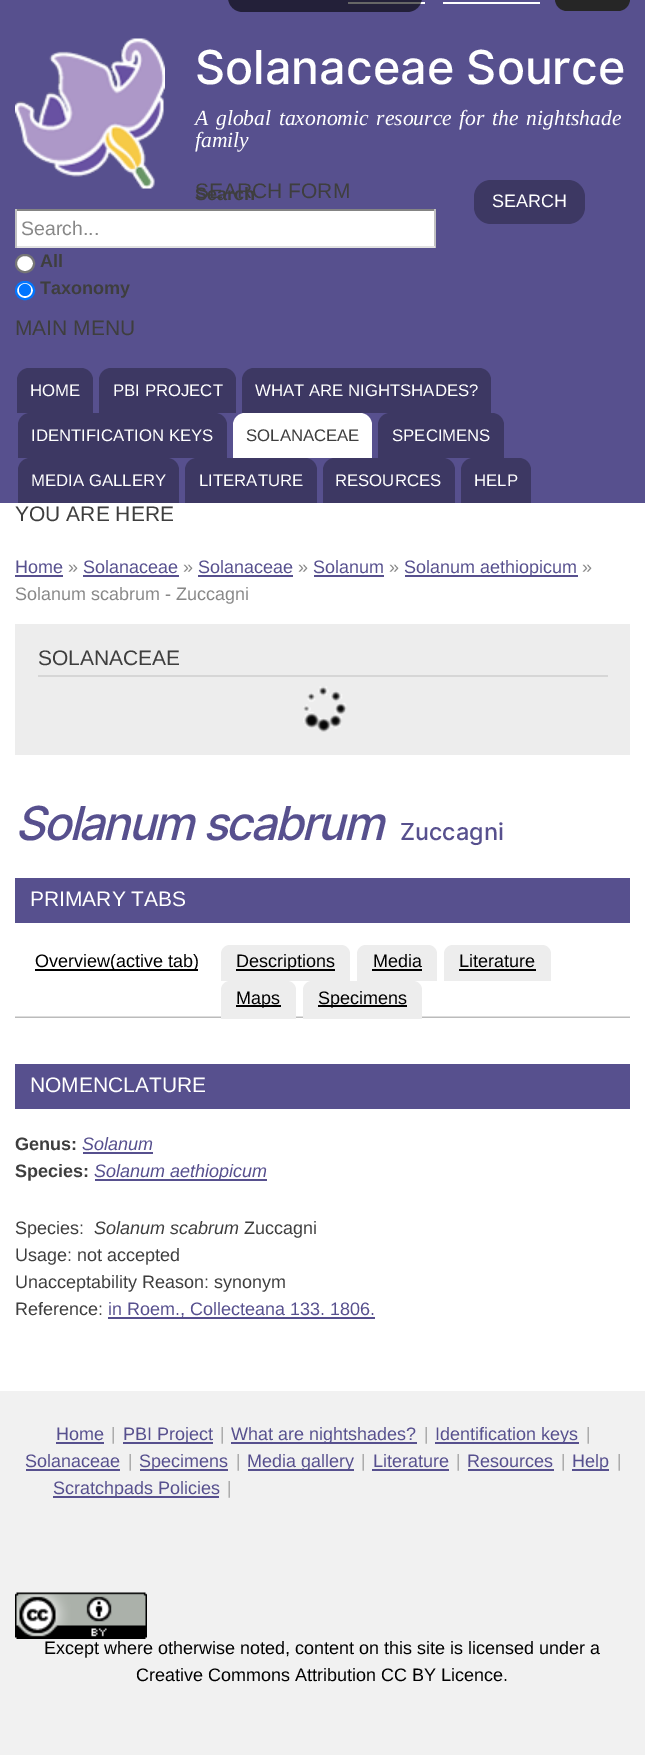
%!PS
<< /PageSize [645 1755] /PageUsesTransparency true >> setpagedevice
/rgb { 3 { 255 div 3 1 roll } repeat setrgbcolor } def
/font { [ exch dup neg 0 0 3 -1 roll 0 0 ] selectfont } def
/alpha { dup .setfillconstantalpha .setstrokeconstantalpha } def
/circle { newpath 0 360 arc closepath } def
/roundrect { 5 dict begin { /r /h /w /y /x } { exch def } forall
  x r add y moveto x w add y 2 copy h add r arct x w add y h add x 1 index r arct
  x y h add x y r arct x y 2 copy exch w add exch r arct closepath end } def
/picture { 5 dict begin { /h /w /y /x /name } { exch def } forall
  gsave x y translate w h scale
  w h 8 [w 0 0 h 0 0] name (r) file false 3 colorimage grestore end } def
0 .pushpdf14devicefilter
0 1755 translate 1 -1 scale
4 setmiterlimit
255 255 255 rgb
0 0 645 1755 rectfill
87 80 142 rgb
0 0 645 503 rectfill
255 255 255 rgb
348 2 77 2 rectfill
0.6 alpha
0 0 0 rgb
228 -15 moveto 422 -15 lineto 422 -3 lineto 422 5.5 415.5 12 407 12 curveto 243 12 lineto 234.5 12 228 5.5 228 -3 curveto closepath fill
1 alpha
38 38 38 rgb
555 -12 moveto 630 -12 lineto 630 -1 lineto 630 5.5 624.5 11 618 11 curveto 567 11 lineto 560.5 11 555 5.5 555 -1 curveto closepath fill
255 255 255 rgb
443 2 97 2 rectfill
(img/1.rgb) 15 38 150 151 picture
[
  [17 211 417 35 255 255 255]
  [15 209 420 2 132 132 132]
  [434 209 2 39 193 193 193]
  [15 246 420 2 225 225 225]
  [15 209 2 39 193 193 193]
] { aload pop rgb rectfill } forall
61 56 99 rgb
474 180 111 44 17 roundrect fill
255 255 255 rgb
16 255 18 17 8.5 roundrect gsave fill grestore
118 118 118 rgb
2 setlinewidth
stroke
255 255 255 rgb
16 282 18 17 8.5 roundrect gsave fill grestore
0 117 255 rgb
stroke
25 290 6 circle fill
61 56 99 rgb
29 368 moveto 81 368 lineto 87.5 368 93 373.5 93 380 curveto 93 413 lineto 17 413 lineto 17 380 lineto 17 373.5 22.5 368 29 368 curveto closepath fill
111 368 moveto 224 368 lineto 230.5 368 236 373.5 236 380 curveto 236 413 lineto 99 413 lineto 99 380 lineto 99 373.5 104.5 368 111 368 curveto closepath fill
254 368 moveto 479 368 lineto 485.5 368 491 373.5 491 380 curveto 491 413 lineto 242 413 lineto 242 380 lineto 242 373.5 247.5 368 254 368 curveto closepath fill
30 413 moveto 215 413 lineto 221.5 413 227 418.5 227 425 curveto 227 458 lineto 18 458 lineto 18 425 lineto 18 418.5 23.5 413 30 413 curveto closepath fill
255 255 255 rgb
245 413 moveto 360 413 lineto 366.5 413 372 418.5 372 425 curveto 372 458 lineto 233 458 lineto 233 425 lineto 233 418.5 238.5 413 245 413 curveto closepath fill
61 56 99 rgb
390 413 moveto 492 413 lineto 498.5 413 504 418.5 504 425 curveto 504 458 lineto 378 458 lineto 378 425 lineto 378 418.5 383.5 413 390 413 curveto closepath fill
30 458 moveto 167 458 lineto 173.5 458 179 463.5 179 470 curveto 179 503 lineto 18 503 lineto 18 470 lineto 18 463.5 23.5 458 30 458 curveto closepath fill
197 458 moveto 305 458 lineto 311.5 458 317 463.5 317 470 curveto 317 503 lineto 185 503 lineto 185 470 lineto 185 463.5 190.5 458 197 458 curveto closepath fill
335 458 moveto 443 458 lineto 449.5 458 455 463.5 455 470 curveto 455 503 lineto 323 503 lineto 323 470 lineto 323 463.5 328.5 458 335 458 curveto closepath fill
473 458 moveto 519 458 lineto 525.5 458 531 463.5 531 470 curveto 531 503 lineto 461 503 lineto 461 470 lineto 461 463.5 466.5 458 473 458 curveto closepath fill
[
  [15 575 48 2 87 80 142]
  [83 575 96 2 87 80 142]
  [198 575 95 2 87 80 142]
  [314 575 70 2 87 80 142]
  [405 575 173 2 87 80 142]
  [15 624 615 131 237 237 237]
  [38 675 570 2 214 214 214]
] { aload pop rgb rectfill } forall
(img/2.rgb) 303 686 44 46 picture
87 80 142 rgb
15 878 615 45 rectfill
(img/3.rgb) 15 1016 615 2 picture
0 0 0 rgb
35 969 163 2 rectfill
237 237 237 rgb
230 945 moveto 341 945 lineto 346 945 350 949 350 954 curveto 350 981 lineto 221 981 lineto 221 954 lineto 221 949 225 945 230 945 curveto closepath fill
0 0 0 rgb
236 969 99 2 rectfill
237 237 237 rgb
366 945 moveto 428 945 lineto 433 945 437 949 437 954 curveto 437 981 lineto 357 981 lineto 357 954 lineto 357 949 361 945 366 945 curveto closepath fill
0 0 0 rgb
372 969 50 2 rectfill
237 237 237 rgb
453 945 moveto 542 945 lineto 547 945 551 949 551 954 curveto 551 981 lineto 444 981 lineto 444 954 lineto 444 949 448 945 453 945 curveto closepath fill
0 0 0 rgb
459 969 77 2 rectfill
237 237 237 rgb
230 981 moveto 287 981 lineto 292 981 296 985 296 990 curveto 296 1019 lineto 221 1019 lineto 221 990 lineto 221 985 225 981 230 981 curveto closepath fill
0 0 0 rgb
236 1005 45 2 rectfill
237 237 237 rgb
312 981 moveto 413 981 lineto 418 981 422 985 422 990 curveto 422 1019 lineto 303 1019 lineto 303 990 lineto 303 985 307 981 312 981 curveto closepath fill
[
  [318 1005 89 2 0 0 0]
  [15 1064 615 45 87 80 142]
  [83 1152 70 2 87 80 142]
  [95 1179 172 2 87 80 142]
  [108 1317 267 2 87 80 142]
  [0 1391 645 364 241 241 241]
  [56 1442 48 2 87 80 142]
  [123 1442 90 2 87 80 142]
  [231 1442 186 2 87 80 142]
  [435 1442 144 2 87 80 142]
  [26 1469 94 2 87 80 142]
  [140 1469 88 2 87 80 142]
  [248 1469 106 2 87 80 142]
  [372 1469 77 2 87 80 142]
  [468 1469 86 2 87 80 142]
  [572 1469 37 2 87 80 142]
  [53 1496 166 2 87 80 142]
] { aload pop rgb rectfill } forall
(img/4.rgb) 15 1592 132 47 picture
/Inter-Medium 46.75 font
255 255 255 rgb
195 84 moveto (Solanaceae Source) show
/LiberationSerif-Italic 21.6 font
195 125 moveto 2.25 0 32 (A global taxonomic resource for the nightshade) widthshow
195 147 moveto (family) show
/LiberationSans-Regular 21 font
62 62 62 rgb
195 198 moveto (SEARCH FORM) show
/LiberationSans-Bold 18 font
195 200 moveto (Search) show
/LiberationSans-Regular 19.5 font
136 136 136 rgb
21 235 moveto (Search...) show
/LiberationSans-Regular 18 font
255 255 255 rgb
492 207 moveto (SEARCH) show
/LiberationSans-Bold 18 font
62 62 62 rgb
40 267 moveto (All) show
40 294 moveto (Taxonomy) show
/LiberationSans-Regular 21 font
15 335 moveto (MAIN MENU) show
/LiberationSans-Regular 16.75 font
255 255 255 rgb
[
  [(HOME) 30 396]
  [(PBI PROJECT) 113 396]
  [(WHAT ARE NIGHTSHADES?) 255 396]
  [(IDENTIFICATION KEYS) 31 441]
] { aload pop moveto show } forall
62 62 62 rgb
246 441 moveto (SOLANACEAE) show
255 255 255 rgb
[
  [(SPECIMENS) 392 441]
  [(MEDIA GALLERY) 31 486]
  [(LITERATURE) 199 486]
  [(RESOURCES) 335 486]
  [(HELP) 474 486]
] { aload pop moveto show } forall
/LiberationSans-Regular 21 font
62 62 62 rgb
15 521 moveto (YOU ARE HERE) show
/LiberationSans-Regular 18 font
87 80 142 rgb
15 573 moveto (Home) show
136 136 136 rgb
68 573 moveto (») show
87 80 142 rgb
83 573 moveto (Solanaceae) show
136 136 136 rgb
183 573 moveto (») show
87 80 142 rgb
198 573 moveto (Solanaceae) show
136 136 136 rgb
298 573 moveto (») show
87 80 142 rgb
313 573 moveto (Solanum) show
136 136 136 rgb
389 573 moveto (») show
87 80 142 rgb
404 573 moveto (Solanum aethiopicum) show
136 136 136 rgb
582 573 moveto (») show
15 600 moveto (Solanum scabrum - Zuccagni) show
/LiberationSans-Regular 21 font
62 62 62 rgb
38 665 moveto (SOLANACEAE) show
/Inter-MediumItalic 46.75 font
87 80 142 rgb
15 840 moveto -2.3 0 (Solanum scabrum) ashow
/Inter-Medium 23.5 font
400 840 moveto (Zuccagni) show
/LiberationSans-Regular 21 font
255 255 255 rgb
30 906 moveto (PRIMARY TABS) show
/LiberationSans-Regular 18 font
0 0 0 rgb
[
  [(Overview\(active tab\)) 35 967]
  [(Descriptions) 236 967]
  [(Media) 373 967]
  [(Literature) 459 967]
  [(Maps) 236 1004]
  [(Specimens) 318 1004]
] { aload pop moveto show } forall
/LiberationSans-Regular 21 font
255 255 255 rgb
30 1092 moveto (NOMENCLATURE) show
/LiberationSans-Bold 18 font
62 62 62 rgb
15 1150 moveto (Genus:) show
/LiberationSans-Italic 18 font
87 80 142 rgb
82 1150 moveto (Solanum) show
/LiberationSans-Bold 18 font
62 62 62 rgb
15 1177 moveto (Species:) show
/LiberationSans-Italic 18 font
87 80 142 rgb
94 1177 moveto (Solanum aethiopicum) show
/LiberationSans-Regular 18 font
62 62 62 rgb
15 1234 moveto (Species:) show
/LiberationSans-Italic 18 font
94 1234 moveto (Solanum scabrum) show
/LiberationSans-Regular 18 font
[
  [(Zuccagni) 244 1234]
  [(Usage: not accepted) 15 1261]
  [(Unacceptability Reason: synonym) 15 1288]
  [(Reference:) 15 1315]
] { aload pop moveto show } forall
87 80 142 rgb
108 1315 moveto (in Roem., Collecteana 133. 1806.) show
56 1440 moveto (Home) show
172 172 172 rgb
111 1440 moveto (|) show
87 80 142 rgb
123 1440 moveto (PBI Project) show
172 172 172 rgb
220 1440 moveto (|) show
87 80 142 rgb
231 1440 moveto (What are nightshades?) show
172 172 172 rgb
424 1440 moveto (|) show
87 80 142 rgb
435 1440 moveto (Identification keys) show
172 172 172 rgb
586 1440 moveto (|) show
87 80 142 rgb
25 1467 moveto (Solanaceae) show
172 172 172 rgb
128 1467 moveto (|) show
87 80 142 rgb
139 1467 moveto (Specimens) show
172 172 172 rgb
236 1467 moveto (|) show
87 80 142 rgb
247 1467 moveto (Media gallery) show
172 172 172 rgb
361 1467 moveto (|) show
87 80 142 rgb
373 1467 moveto (Literature) show
172 172 172 rgb
456 1467 moveto (|) show
87 80 142 rgb
467 1467 moveto (Resources) show
172 172 172 rgb
561 1467 moveto (|) show
87 80 142 rgb
572 1467 moveto (Help) show
172 172 172 rgb
617 1467 moveto (|) show
87 80 142 rgb
53 1494 moveto (Scratchpads Policies) show
172 172 172 rgb
227 1494 moveto (|) show
0 0 0 rgb
44 1654 moveto (Except where otherwise noted, content on this site is licensed under a) show
136 1681 moveto (Creative Commons Attribution CC BY Licence.) show
.poppdf14devicefilter showpage
